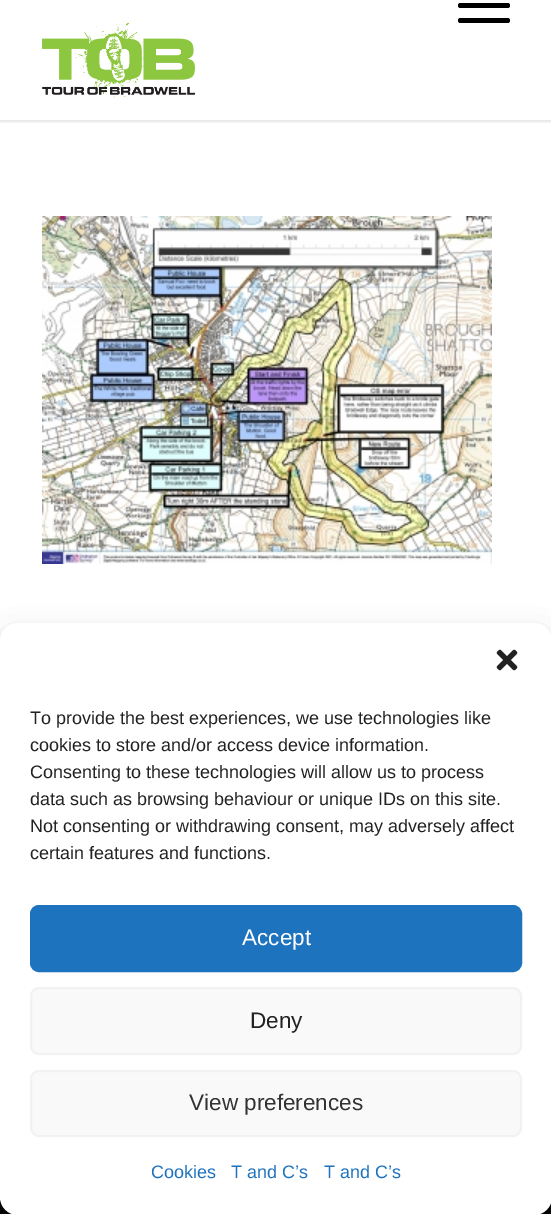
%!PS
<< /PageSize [551 1214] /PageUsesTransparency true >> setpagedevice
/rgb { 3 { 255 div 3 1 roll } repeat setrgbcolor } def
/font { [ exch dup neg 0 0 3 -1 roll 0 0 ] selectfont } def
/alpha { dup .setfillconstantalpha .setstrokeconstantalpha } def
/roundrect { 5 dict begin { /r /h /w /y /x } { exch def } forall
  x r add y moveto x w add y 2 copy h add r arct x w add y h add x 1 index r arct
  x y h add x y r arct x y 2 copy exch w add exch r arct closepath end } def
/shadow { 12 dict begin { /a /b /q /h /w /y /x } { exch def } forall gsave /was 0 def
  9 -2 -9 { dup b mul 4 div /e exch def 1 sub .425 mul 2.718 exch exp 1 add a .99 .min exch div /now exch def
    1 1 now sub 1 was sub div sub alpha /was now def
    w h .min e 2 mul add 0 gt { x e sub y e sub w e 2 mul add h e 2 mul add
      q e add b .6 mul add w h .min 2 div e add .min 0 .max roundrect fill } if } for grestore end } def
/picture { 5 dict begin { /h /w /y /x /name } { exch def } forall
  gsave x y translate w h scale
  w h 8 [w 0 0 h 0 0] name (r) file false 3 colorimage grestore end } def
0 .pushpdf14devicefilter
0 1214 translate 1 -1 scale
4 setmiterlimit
255 255 255 rgb
0 0 551 1214 rectfill
gsave
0 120 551 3 rectclip
0 0 0 rgb
-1 -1 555 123 0 1.5 0.1 shadow
grestore
0 0 0 rgb
458 3 52 5 2.5 roundrect fill
458 18 52 5 2.5 roundrect fill
(img/1.rgb) 42 22 153 76 picture
(img/2.rgb) 42 216 450 348 picture
5 5 5 rgb
0 1197 551 17 rectfill
0 0 0 rgb
0 632 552 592 18 4.5 0.23 shadow
0 638 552 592 18 15 0.19 shadow
255 255 255 rgb
0 623 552 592 18 roundrect fill
(img/3.rgb) 496 649 22 22 picture
30 115 190 rgb
31 906 490 65 8 roundrect gsave fill grestore
2 setlinewidth
stroke
249 249 249 rgb
31 988 490 66 8 roundrect gsave fill grestore
242 242 242 rgb
stroke
249 249 249 rgb
31 1071 490 65 8 roundrect gsave fill grestore
242 242 242 rgb
stroke
/LiberationSans-Regular 18 font
34 34 34 rgb
[
  [(To provide the best experiences, we use technologies like) 30 724]
  [(cookies to store and/or access device information.) 30 751]
  [(Consenting to these technologies will allow us to process) 30 778]
  [(data such as browsing behaviour or unique IDs on this site.) 30 805]
  [(Not consenting or withdrawing consent, may adversely affect) 30 832]
  [(certain features and functions.) 30 859]
] { aload pop moveto show } forall
/LiberationSans-Regular 22.5 font
255 255 255 rgb
242 945 moveto (Accept) show
34 34 34 rgb
250 1028 moveto (Deny) show
51 51 51 rgb
189 1110 moveto (View preferences) show
/LiberationSans-Regular 18 font
30 115 190 rgb
[
  [(Cookies) 151 1178]
  [(T and C’s) 231 1178]
  [(T and C’s) 324 1178]
] { aload pop moveto show } forall
.poppdf14devicefilter showpage
